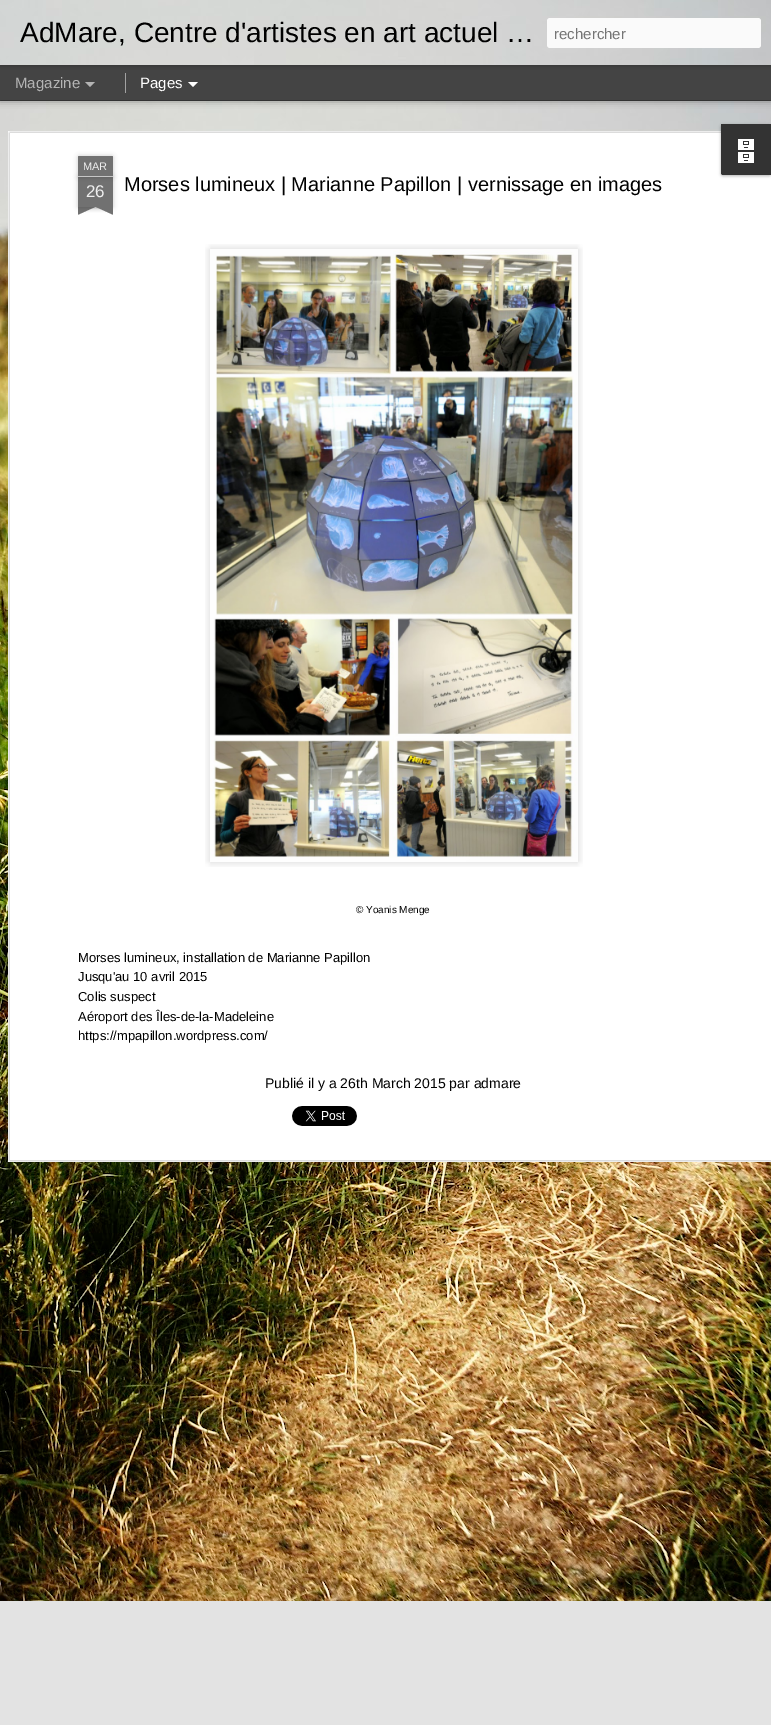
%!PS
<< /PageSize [771 1725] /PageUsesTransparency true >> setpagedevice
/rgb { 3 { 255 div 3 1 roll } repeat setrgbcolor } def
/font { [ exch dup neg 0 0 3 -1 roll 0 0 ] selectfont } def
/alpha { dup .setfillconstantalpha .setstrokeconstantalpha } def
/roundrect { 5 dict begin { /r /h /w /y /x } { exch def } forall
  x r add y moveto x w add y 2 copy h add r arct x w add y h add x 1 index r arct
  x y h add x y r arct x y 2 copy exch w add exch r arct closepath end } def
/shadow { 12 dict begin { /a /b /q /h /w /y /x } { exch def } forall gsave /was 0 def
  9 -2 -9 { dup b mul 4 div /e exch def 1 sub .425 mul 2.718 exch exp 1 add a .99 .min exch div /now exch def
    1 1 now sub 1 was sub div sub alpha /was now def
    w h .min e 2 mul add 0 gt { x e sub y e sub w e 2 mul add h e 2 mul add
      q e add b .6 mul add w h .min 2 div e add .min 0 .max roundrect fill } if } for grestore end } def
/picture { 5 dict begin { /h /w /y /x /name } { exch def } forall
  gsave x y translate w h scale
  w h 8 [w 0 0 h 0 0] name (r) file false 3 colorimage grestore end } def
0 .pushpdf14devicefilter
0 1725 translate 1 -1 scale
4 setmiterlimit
68 68 68 rgb
0 0 771 1725 rectfill
(img/3.rgb) 0 101 771 1500 picture
0 0 0 rgb
0 65 771 35 0 4 0.5 shadow
68 68 68 rgb
0 65 771 35 rectfill
162 162 162 rgb
125 73 1 20 rectfill
0 0 0 rgb
0 0 771 65 0 2.5 0.3 shadow
(img/1.rgb) 0 0 771 65 picture
250 250 250 rgb
547 18 214 30 3 roundrect fill
180 180 180 rgb
85 82 moveto 95 82 lineto 90 87 lineto closepath fill
255 255 255 rgb
188 82 moveto 198 82 lineto 193 87 lineto closepath fill
8 131 763 1031 rectfill
(img/4.rgb) 8 131 763 1031 picture
0 0 0 rgb
721 125 50 51 2 1.5 0.3 shadow
51 51 51 rgb
721 124 moveto 771 124 lineto 771 175 lineto 723 175 lineto 722 175 721 174 721 173 curveto closepath fill
(img/2.rgb) 738 139 16 24 picture
227 227 227 rgb
0 1601 771 124 rectfill
0 0 0 rgb
78 177 35 30 0 2.5 0.2 shadow
113 113 113 rgb
78 177 35 30 rectfill
0 0 0 rgb
78 156 35 21 1 2.5 0.2 shadow
113 113 113 rgb
79 156 moveto 112 156 lineto 112.5 156 113 156.5 113 157 curveto 113 177 lineto 78 177 lineto 78 157 lineto 78 156.5 78.5 156 79 156 curveto closepath fill
198 198 198 rgb
78 176 35 1 rectfill
gsave
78 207 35 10 rectclip
0 0 0 rgb
69 197 50 10 0 2.5 0.2 shadow
grestore
gsave
78 207 35 10 rectclip
113 113 113 rgb
69 208 moveto 115 187 lineto 119 196 lineto 73 217 lineto closepath fill
grestore
gsave
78 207 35 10 rectclip
0 0 0 rgb
72 197 50 10 0 2.5 0.2 shadow
grestore
gsave
78 207 35 10 rectclip
113 113 113 rgb
76 187 moveto 122 208 lineto 118 217 lineto 72 196 lineto closepath fill
grestore
(img/5.rgb) 205 244 378 623 picture
(img/6.rgb) 214 255 359 602 picture
(img/7.rgb) 292 1106 65 20 picture
/LiberationSans-Regular 28 font
0 0 0 rgb
20 42 moveto (AdMare, Centre d'artistes en art actuel …) show
/LiberationSans-Regular 15 font
117 117 117 rgb
554 39 moveto (rechercher) show
180 180 180 rgb
15 88 moveto (Magazine) show
255 255 255 rgb
140 88 moveto (Pages) show
/LiberationSans-Regular 11 font
238 238 238 rgb
83 170 moveto (MAR) show
/LiberationSans-Regular 17 font
86 197 moveto (26) show
/LiberationSans-Regular 20 font
0 0 0 rgb
124 191 moveto (Morses lumineux | Marianne Papillon | vernissage en images) show
/LiberationSans-Regular 10 font
356 913 moveto (© Yoanis Menge) show
/LiberationSans-Regular 13 font
[
  [(Morses lumineux, installation de Marianne Papillon) 78 962]
  [(Jusqu'au 10 avril 2015) 78 981]
  [(Colis suspect) 78 1001]
  [(Aéroport des Îles-de-la-Madeleine) 78 1021]
  [(https://mpapillon.wordpress.com/) 78 1040]
] { aload pop moveto show } forall
/LiberationSans-Regular 14 font
265 1088 moveto (Publié il y a 26th March 2015 par admare) show
.poppdf14devicefilter showpage
